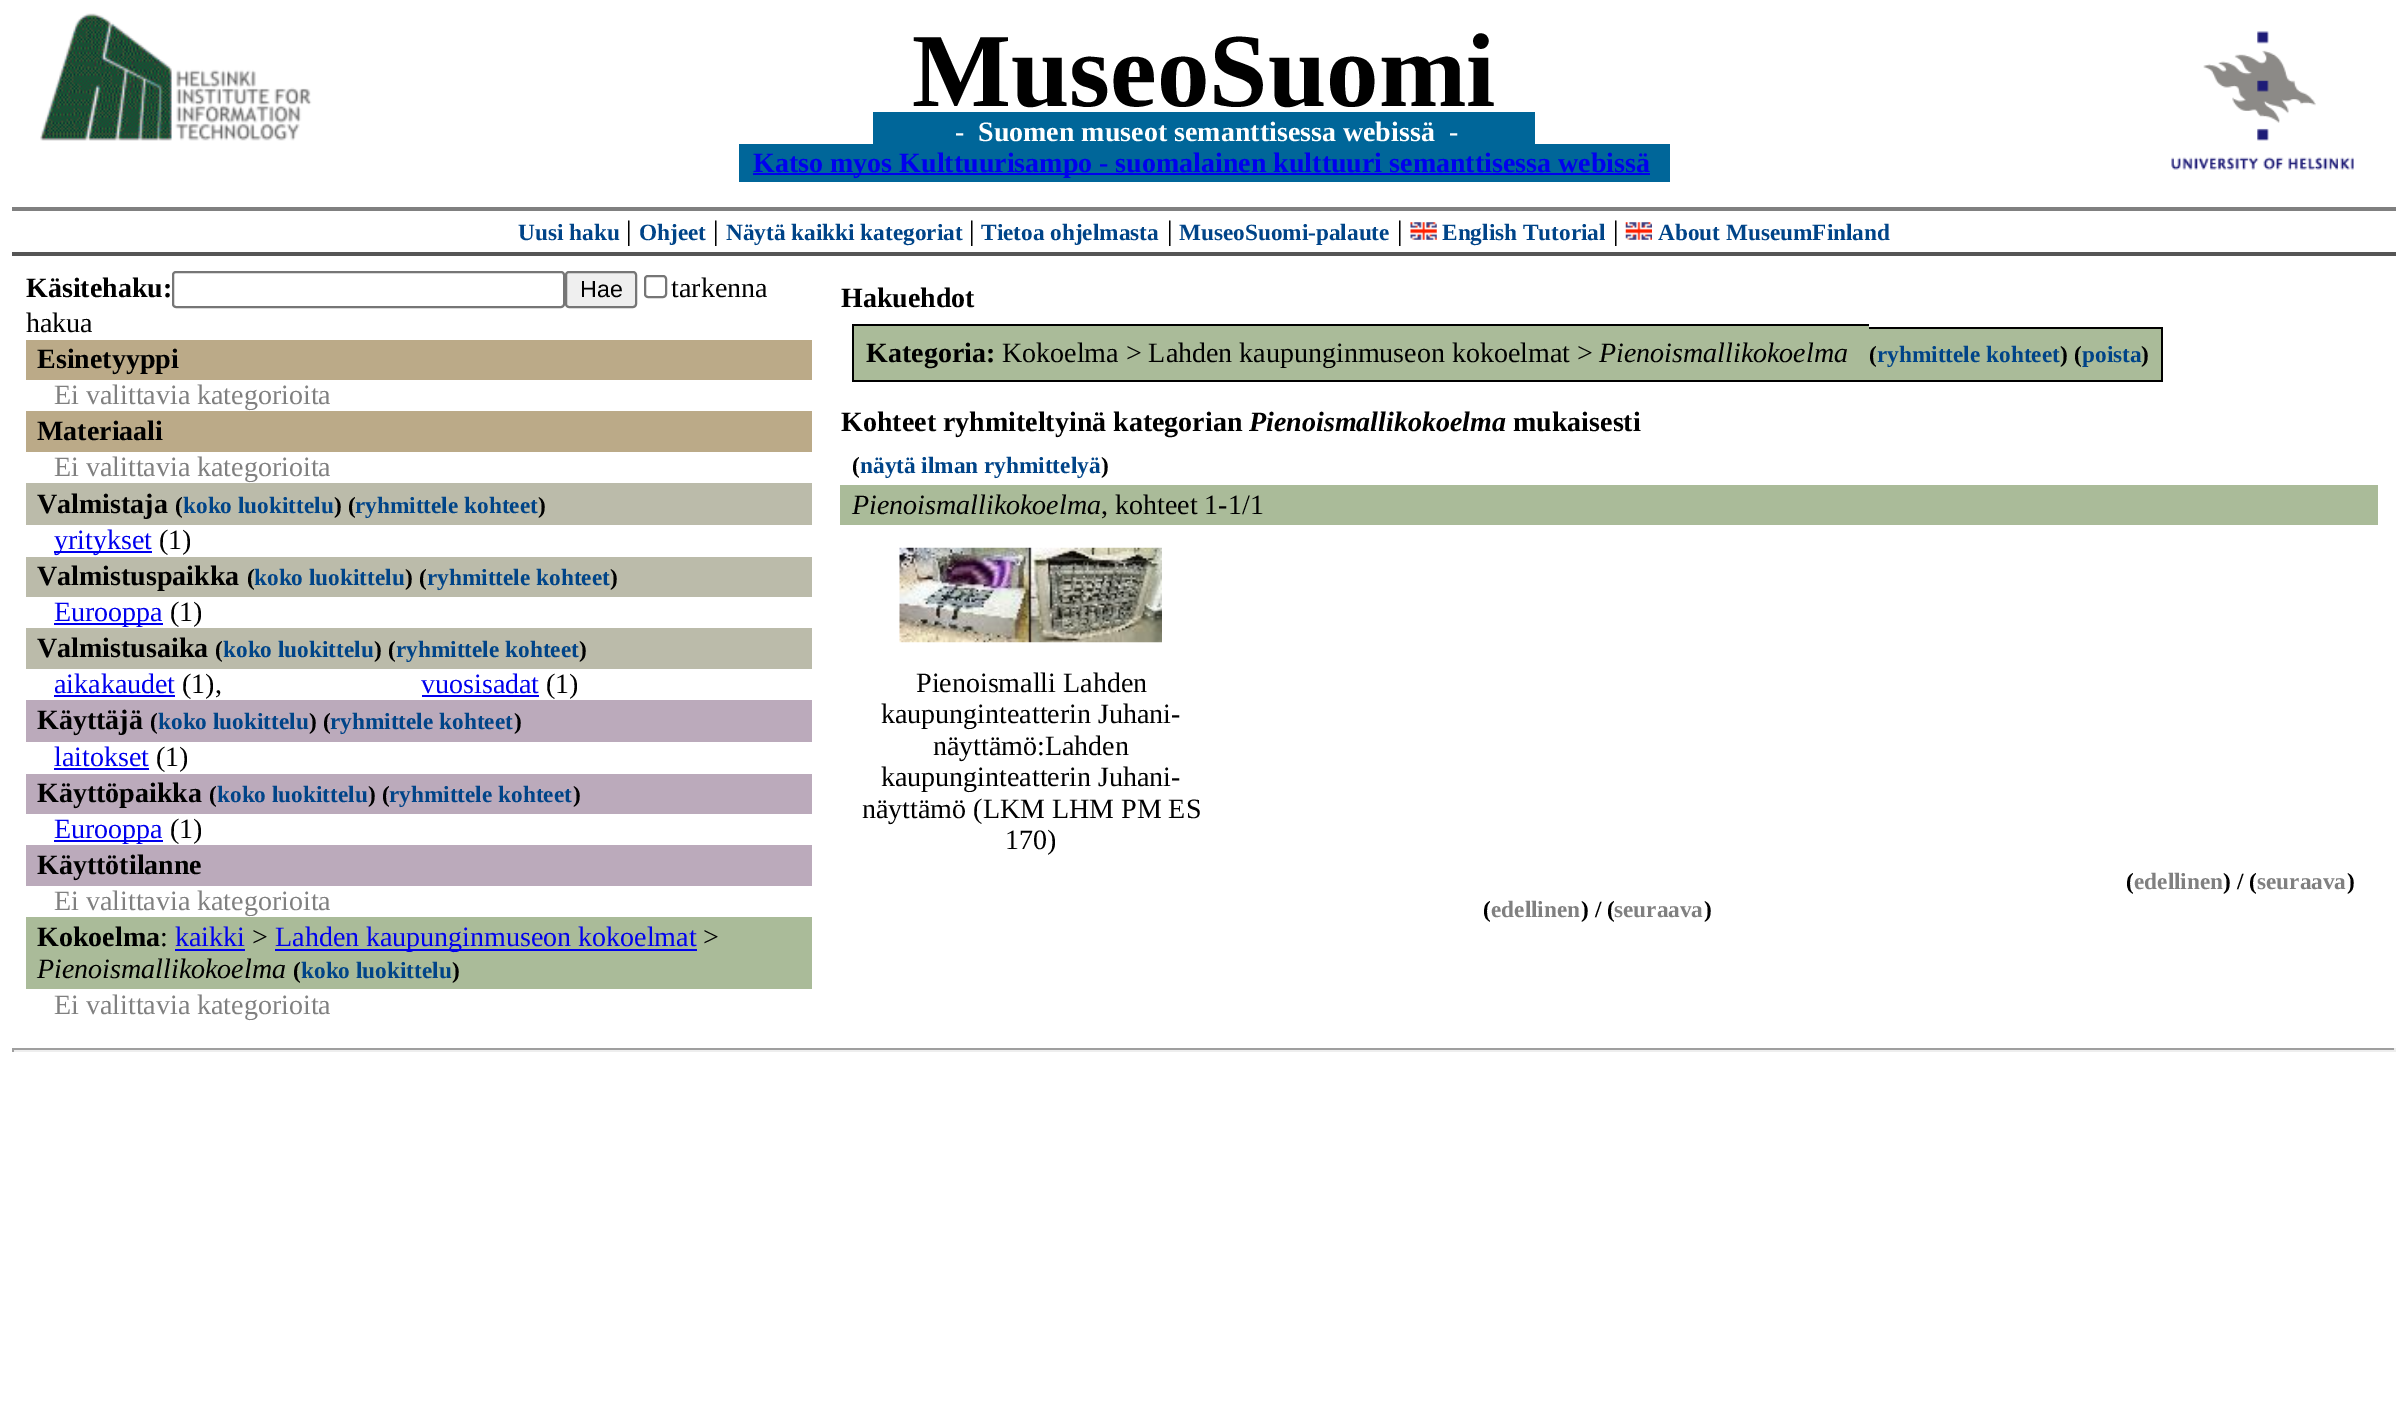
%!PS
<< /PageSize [2408 1413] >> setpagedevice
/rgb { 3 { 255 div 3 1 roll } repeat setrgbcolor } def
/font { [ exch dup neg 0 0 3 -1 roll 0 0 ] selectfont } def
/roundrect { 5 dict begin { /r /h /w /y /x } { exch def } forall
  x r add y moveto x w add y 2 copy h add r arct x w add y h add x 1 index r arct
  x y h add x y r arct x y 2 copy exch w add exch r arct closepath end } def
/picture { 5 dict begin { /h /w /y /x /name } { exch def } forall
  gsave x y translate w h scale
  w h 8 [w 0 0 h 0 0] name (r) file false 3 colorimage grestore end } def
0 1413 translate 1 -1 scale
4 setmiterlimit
255 255 255 rgb
0 0 2408 1413 rectfill
(img/1.rgb) 40 13 272 128 picture
(img/2.rgb) 2171 31 183 139 picture
[
  [873 112 662 32 0 102 153]
  [739 144 931 38 0 102 153]
  [753 173 897 2 0 0 238]
  [12 207 2384 4 128 128 128]
  [12 252 2384 4 85 85 85]
] { aload pop rgb rectfill } forall
(img/3.rgb) 1410 222 27 18 picture
(img/4.rgb) 1625 222 27 18 picture
118 118 118 rgb
2 setlinewidth
173 272 391 35 3 roundrect stroke
239 239 239 rgb
566 272 70 35 3 roundrect gsave fill grestore
118 118 118 rgb
stroke
645 276 21 21 3 roundrect stroke
[
  [26 340 786 40 187 170 136]
  [26 411 786 41 187 170 136]
  [26 483 786 42 187 187 170]
  [54 551 98 2 0 0 238]
  [26 557 786 40 187 187 170]
  [54 623 109 2 0 0 238]
  [26 628 786 41 187 187 170]
  [54 695 121 2 0 0 238]
  [422 695 117 2 0 0 238]
  [26 700 786 42 187 170 187]
  [54 768 95 2 0 0 238]
  [26 774 786 40 187 170 187]
  [54 840 109 2 0 0 238]
  [26 845 786 41 187 170 187]
  [26 917 786 72 170 187 153]
  [175 949 70 2 0 0 238]
  [275 949 422 2 0 0 238]
  [852 324 1017 2 0 0 0]
  [852 380 1290 2 0 0 0]
  [852 324 2 58 0 0 0]
  [854 326 1015 54 170 187 153]
  [1869 329 292 51 170 187 153]
  [1869 327 294 2 0 0 0]
  [2161 327 2 55 0 0 0]
  [2142 380 21 2 0 0 0]
  [840 485 1538 40 170 187 153]
] { aload pop rgb rectfill } forall
(img/5.rgb) 899 547 263 96 picture
[
  [12 1048 2384 2 159 159 159]
  [2394 1048 2 4 238 238 238]
  [12 1050 2384 2 238 238 238]
  [12 1048 2 4 159 159 159]
] { aload pop rgb rectfill } forall
/LiberationSerif-Bold 105 font
0 0 0 rgb
912 106 moveto (MuseoSuomi) show
/LiberationSerif-Bold 28 font
255 255 255 rgb
[
  [(-) 955 141]
  [(Suomen museot semanttisessa webissä) 978 141]
  [(-) 1449 141]
] { aload pop moveto show } forall
0 0 238 rgb
753 172 moveto (Katso myos Kulttuurisampo - suomalainen kulttuuri semanttisessa webissä) show
/LiberationSerif-Bold 23.25 font
0 68 136 rgb
518 240 moveto (Uusi haku) show
/LiberationSerif-Regular 28 font
0 0 0 rgb
626 240 moveto (|) show
/LiberationSerif-Bold 23.25 font
0 68 136 rgb
639 240 moveto (Ohjeet) show
/LiberationSerif-Regular 28 font
0 0 0 rgb
713 240 moveto (|) show
/LiberationSerif-Bold 23.25 font
0 68 136 rgb
726 240 moveto (Näytä kaikki kategoriat) show
/LiberationSerif-Regular 28 font
0 0 0 rgb
969 240 moveto (|) show
/LiberationSerif-Bold 23.25 font
0 68 136 rgb
981 240 moveto (Tietoa ohjelmasta) show
/LiberationSerif-Regular 28 font
0 0 0 rgb
1167 240 moveto (|) show
/LiberationSerif-Bold 23.25 font
0 68 136 rgb
1179 240 moveto (MuseoSuomi-palaute) show
/LiberationSerif-Regular 28 font
0 0 0 rgb
1397 240 moveto (|) show
/LiberationSerif-Bold 23.25 font
0 68 136 rgb
1442 240 moveto (English Tutorial) show
/LiberationSerif-Regular 28 font
0 0 0 rgb
1613 240 moveto (|) show
/LiberationSerif-Bold 23.25 font
0 68 136 rgb
1658 240 moveto (About MuseumFinland) show
/LiberationSerif-Bold 28 font
0 0 0 rgb
26 297 moveto (Käsitehaku:) show
/LiberationSans-Regular 23.25 font
580 297 moveto (Hae) show
/LiberationSerif-Regular 28 font
671 297 moveto (tarkenna) show
26 332 moveto (hakua) show
/LiberationSerif-Bold 28 font
37 368 moveto (Esinetyyppi) show
/LiberationSerif-Regular 28 font
128 128 128 rgb
54 404 moveto (Ei valittavia kategorioita) show
/LiberationSerif-Bold 28 font
0 0 0 rgb
37 440 moveto (Materiaali) show
/LiberationSerif-Regular 28 font
128 128 128 rgb
54 476 moveto (Ei valittavia kategorioita) show
/LiberationSerif-Bold 28 font
0 0 0 rgb
37 513 moveto (Valmistaja) show
/LiberationSerif-Bold 23.25 font
175 513 moveto (\() show
0 68 136 rgb
183 513 moveto (koko luokittelu) show
0 0 0 rgb
334 513 moveto (\) \() show
0 68 136 rgb
355 513 moveto (ryhmittele kohteet) show
0 0 0 rgb
538 513 moveto (\)) show
/LiberationSerif-Regular 28 font
0 0 238 rgb
54 549 moveto (yritykset) show
0 0 0 rgb
159 549 moveto (\(1\)) show
/LiberationSerif-Bold 28 font
37 585 moveto (Valmistuspaikka) show
/LiberationSerif-Bold 23.25 font
247 585 moveto (\() show
0 68 136 rgb
254 585 moveto (koko luokittelu) show
0 0 0 rgb
405 585 moveto (\) \() show
0 68 136 rgb
427 585 moveto (ryhmittele kohteet) show
0 0 0 rgb
610 585 moveto (\)) show
/LiberationSerif-Regular 28 font
0 0 238 rgb
54 621 moveto (Eurooppa) show
0 0 0 rgb
170 621 moveto (\(1\)) show
/LiberationSerif-Bold 28 font
37 657 moveto (Valmistusaika) show
/LiberationSerif-Bold 23.25 font
215 657 moveto (\() show
0 68 136 rgb
223 657 moveto (koko luokittelu) show
0 0 0 rgb
374 657 moveto (\) \() show
0 68 136 rgb
396 657 moveto (ryhmittele kohteet) show
0 0 0 rgb
579 657 moveto (\)) show
/LiberationSerif-Regular 28 font
0 0 238 rgb
54 693 moveto (aikakaudet) show
0 0 0 rgb
182 693 moveto (\(1\),) show
0 0 238 rgb
421 693 moveto (vuosisadat) show
0 0 0 rgb
546 693 moveto (\(1\)) show
/LiberationSerif-Bold 28 font
37 729 moveto (Käyttäjä) show
/LiberationSerif-Bold 23.25 font
150 729 moveto (\() show
0 68 136 rgb
158 729 moveto (koko luokittelu) show
0 0 0 rgb
309 729 moveto (\) \() show
0 68 136 rgb
330 729 moveto (ryhmittele kohteet) show
0 0 0 rgb
514 729 moveto (\)) show
/LiberationSerif-Regular 28 font
0 0 238 rgb
54 766 moveto (laitokset) show
0 0 0 rgb
156 766 moveto (\(1\)) show
/LiberationSerif-Bold 28 font
37 802 moveto (Käyttöpaikka) show
/LiberationSerif-Bold 23.25 font
209 802 moveto (\() show
0 68 136 rgb
217 802 moveto (koko luokittelu) show
0 0 0 rgb
368 802 moveto (\) \() show
0 68 136 rgb
389 802 moveto (ryhmittele kohteet) show
0 0 0 rgb
573 802 moveto (\)) show
/LiberationSerif-Regular 28 font
0 0 238 rgb
54 838 moveto (Eurooppa) show
0 0 0 rgb
170 838 moveto (\(1\)) show
/LiberationSerif-Bold 28 font
37 874 moveto (Käyttötilanne) show
/LiberationSerif-Regular 28 font
128 128 128 rgb
54 910 moveto (Ei valittavia kategorioita) show
/LiberationSerif-Bold 28 font
0 0 0 rgb
37 946 moveto (Kokoelma) show
/LiberationSerif-Regular 28 font
160 946 moveto (:) show
0 0 238 rgb
175 946 moveto (kaikki) show
0 0 0 rgb
252 946 moveto (>) show
0 0 238 rgb
275 946 moveto (Lahden kaupunginmuseon kokoelmat) show
0 0 0 rgb
703 946 moveto (>) show
/LiberationSerif-Italic 28 font
37 978 moveto (Pienoismallikokoelma) show
/LiberationSerif-Bold 23.25 font
293 978 moveto (\() show
0 68 136 rgb
301 978 moveto (koko luokittelu) show
0 0 0 rgb
452 978 moveto (\)) show
/LiberationSerif-Regular 28 font
128 128 128 rgb
54 1014 moveto (Ei valittavia kategorioita) show
/LiberationSerif-Bold 28 font
0 0 0 rgb
841 307 moveto (Hakuehdot) show
866 362 moveto (Kategoria:) show
/LiberationSerif-Regular 28 font
1002 362 moveto (Kokoelma > Lahden kaupunginmuseon kokoelmat >) show
/LiberationSerif-Italic 28 font
1599 362 moveto (Pienoismallikokoelma) show
/LiberationSerif-Bold 23.25 font
1869 362 moveto (\() show
0 68 136 rgb
1877 362 moveto (ryhmittele kohteet) show
0 0 0 rgb
2060 362 moveto (\) \() show
0 68 136 rgb
2082 362 moveto (poista) show
0 0 0 rgb
2141 362 moveto (\)) show
/LiberationSerif-Bold 28 font
841 431 moveto (Kohteet ryhmiteltyinä kategorian) show
/LiberationSerif-BoldItalic 28 font
1249 431 moveto (Pienoismallikokoelma) show
/LiberationSerif-Bold 28 font
1513 431 moveto (mukaisesti) show
/LiberationSerif-Bold 23.25 font
852 473 moveto (\() show
0 68 136 rgb
860 473 moveto (näytä ilman ryhmittelyä) show
0 0 0 rgb
1101 473 moveto (\)) show
/LiberationSerif-Italic 28 font
852 514 moveto (Pienoismallikokoelma) show
/LiberationSerif-Regular 28 font
[
  [(, kohteet 1-1/1) 1101 514]
  [(Pienoismalli Lahden) 916 692]
  [(kaupunginteatterin Juhani-) 881 723]
  [(näyttämö:Lahden) 933 755]
  [(kaupunginteatterin Juhani-) 881 786]
  [(näyttämö \(LKM LHM PM ES) 862 818]
  [(170\)) 1005 849]
] { aload pop moveto show } forall
/LiberationSerif-Bold 23.25 font
2126 889 moveto (\() show
128 128 128 rgb
2134 889 moveto (edellinen) show
0 0 0 rgb
2223 889 moveto (\) / \() show
128 128 128 rgb
2257 889 moveto (seuraava) show
0 0 0 rgb
2347 889 moveto (\)) show
1483 917 moveto (\() show
128 128 128 rgb
1491 917 moveto (edellinen) show
0 0 0 rgb
1581 917 moveto (\) / \() show
128 128 128 rgb
1614 917 moveto (seuraava) show
0 0 0 rgb
1704 917 moveto (\)) show
showpage
